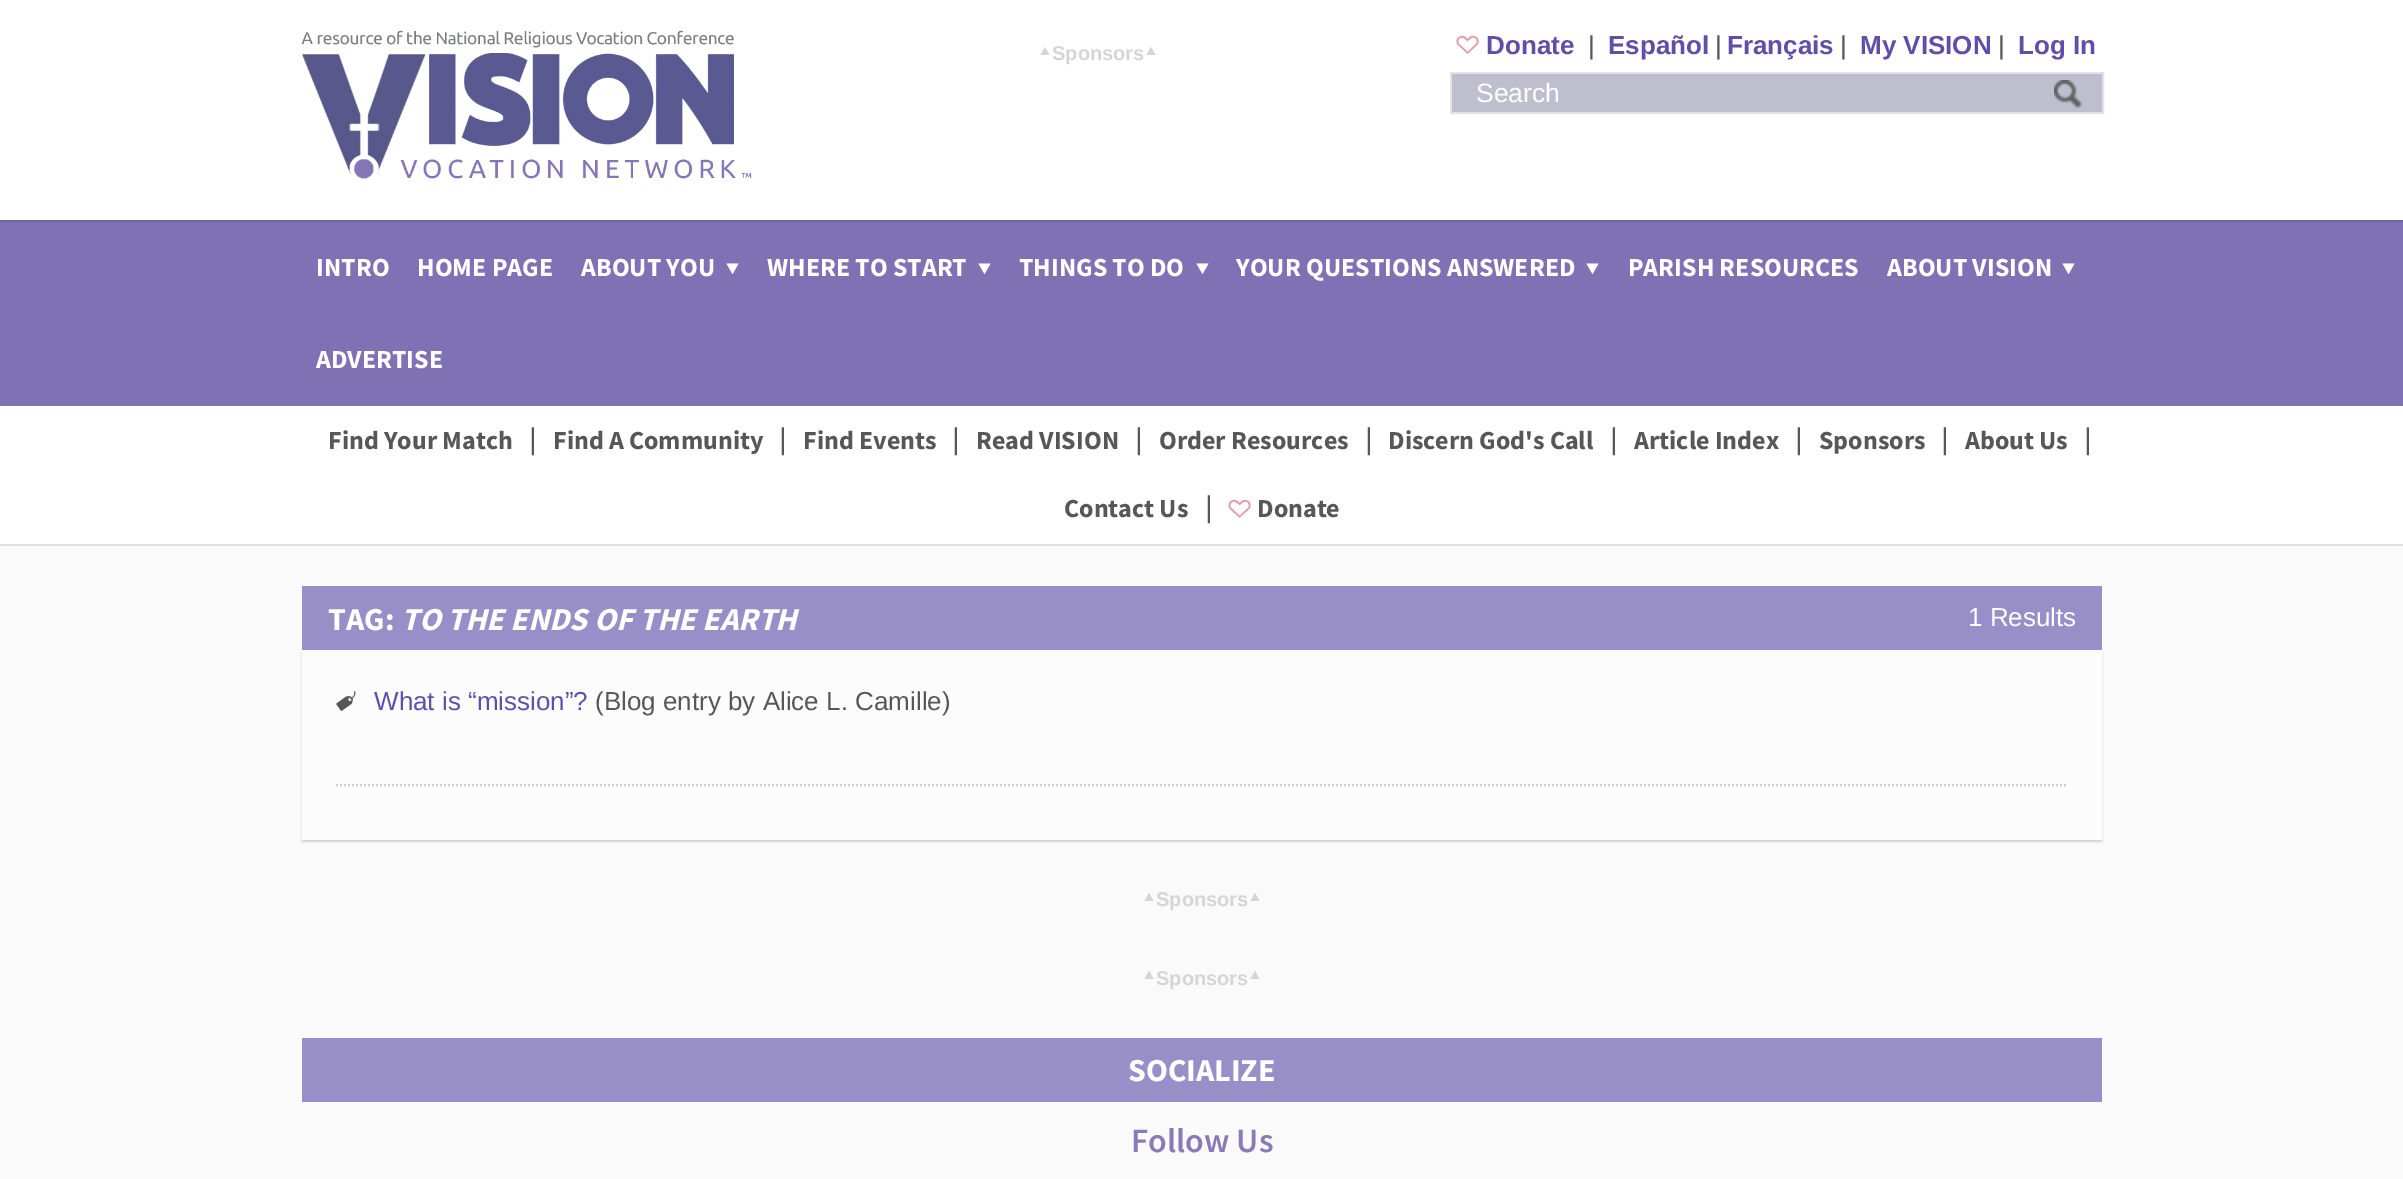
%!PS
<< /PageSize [2403 1179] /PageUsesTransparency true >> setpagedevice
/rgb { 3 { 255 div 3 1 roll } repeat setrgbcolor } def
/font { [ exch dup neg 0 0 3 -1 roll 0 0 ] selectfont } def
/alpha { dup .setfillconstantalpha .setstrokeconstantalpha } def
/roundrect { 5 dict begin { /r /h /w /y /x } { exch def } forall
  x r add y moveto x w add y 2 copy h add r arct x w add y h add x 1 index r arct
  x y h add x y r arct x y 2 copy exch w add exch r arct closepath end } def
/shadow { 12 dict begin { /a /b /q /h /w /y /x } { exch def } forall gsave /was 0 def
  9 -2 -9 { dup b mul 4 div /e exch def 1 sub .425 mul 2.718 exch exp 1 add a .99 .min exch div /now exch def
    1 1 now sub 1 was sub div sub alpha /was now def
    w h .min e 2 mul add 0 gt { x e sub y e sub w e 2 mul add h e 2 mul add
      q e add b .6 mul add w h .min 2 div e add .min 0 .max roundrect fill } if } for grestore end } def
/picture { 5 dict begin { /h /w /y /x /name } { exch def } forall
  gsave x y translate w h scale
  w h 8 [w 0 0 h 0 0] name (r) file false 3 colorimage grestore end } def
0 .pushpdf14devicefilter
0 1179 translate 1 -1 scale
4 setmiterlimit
250 250 250 rgb
0 0 2403 1179 rectfill
255 255 255 rgb
0 0 2403 220 rectfill
(img/1.rgb) 302 30 450 149 picture
213 213 213 rgb
1040.5 55 moveto 1045 47 lineto 1049.5 55 lineto closepath fill
1146.5 55 moveto 1151 47 lineto 1155.5 55 lineto closepath fill
(img/2.rgb) 1456 35 23 19 picture
226 226 226 rgb
2 setlinewidth
1451 73 652 40 rectstroke
191 190 207 rgb
1452 74 650 38 rectfill
(img/3.rgb) 2054 80 28 28 picture
126 114 180 rgb
0 222 2403 184 rectfill
115 105 161 rgb
0 220 2403 2 rectfill
255 255 255 rgb
738.5 263.5 moveto 732.5 274 lineto 726.5 263.5 lineto closepath fill
990.5 263.5 moveto 984.5 274 lineto 978.5 263.5 lineto closepath fill
1208.5 263.5 moveto 1202.5 274 lineto 1196.5 263.5 lineto closepath fill
1598.5 263.5 moveto 1592.5 274 lineto 1586.5 263.5 lineto closepath fill
2074.5 263.5 moveto 2068.5 274 lineto 2062.5 263.5 lineto closepath fill
0 406 2403 138 rectfill
225 225 225 rgb
0 544 2403 2 rectfill
(img/2.rgb) 1228 499 23 19 picture
152 143 201 rgb
302 586 1800 64 rectfill
53 53 53 rgb
302 652 1800 190 0 1 0.2 shadow
252 252 252 rgb
302 650 1800 190 rectfill
205 204 204 rgb
[2 2] 0 setdash
336 785 moveto 2068 785 lineto stroke
(img/4.rgb) 336 691 20 20 picture
213 213 213 rgb
1144.5 901 moveto 1149 893 lineto 1153.5 901 lineto closepath fill
1250.5 901 moveto 1255 893 lineto 1259.5 901 lineto closepath fill
1144.5 979 moveto 1149 971 lineto 1153.5 979 lineto closepath fill
1250.5 979 moveto 1255 971 lineto 1259.5 979 lineto closepath fill
152 143 201 rgb
302 1038 1800 64 rectfill
/LiberationSans-Bold 20 font
213 213 213 rgb
1052 60 moveto (Sponsors) show
/LiberationSans-Bold 26 font
95 79 169 rgb
1486 54 moveto (Donate) show
/LiberationSans-Regular 26 font
87 87 87 rgb
1588 54 moveto (|) show
/LiberationSans-Bold 26 font
95 79 169 rgb
1608 54 moveto (Español) show
/LiberationSans-Regular 26 font
87 87 87 rgb
1715 54 moveto (|) show
/LiberationSans-Bold 26 font
95 79 169 rgb
1727 54 moveto (Français) show
/LiberationSans-Regular 26 font
87 87 87 rgb
1840 54 moveto (|) show
/LiberationSans-Bold 26 font
95 79 169 rgb
1860 54 moveto (My VISION) show
/LiberationSans-Regular 26 font
87 87 87 rgb
1998 54 moveto (|) show
/LiberationSans-Bold 26 font
95 79 169 rgb
2018 54 moveto (Log In) show
/LiberationSans-Regular 26.5 font
255 255 255 rgb
1476 102 moveto (Search) show
/SourceSansPro-Bold 26 font
[
  [(INTRO) 316 276]
  [(HOME PAGE) 417 276]
  [(ABOUT YOU) 581 276]
  [(WHERE TO START) 767 276]
  [(THINGS TO DO) 1019 276]
  [(YOUR QUESTIONS ANSWERED) 1236 276]
  [(PARISH RESOURCES) 1628 276]
  [(ABOUT VISION) 1887 276]
  [(ADVERTISE) 316 368]
] { aload pop moveto show } forall
87 87 87 rgb
328 449 moveto (Find Your Match) show
/LiberationSans-Regular 30 font
529 449 moveto (|) show
/SourceSansPro-Bold 26 font
553 449 moveto (Find A Community) show
/LiberationSans-Regular 30 font
779 449 moveto (|) show
/SourceSansPro-Bold 26 font
803 449 moveto (Find Events) show
/LiberationSans-Regular 30 font
952 449 moveto (|) show
/SourceSansPro-Bold 26 font
976 449 moveto (Read VISION) show
/LiberationSans-Regular 30 font
1135 449 moveto (|) show
/SourceSansPro-Bold 26 font
1159 449 moveto (Order Resources) show
/LiberationSans-Regular 30 font
1365 449 moveto (|) show
/SourceSansPro-Bold 26 font
1388 449 moveto (Discern God's Call) show
/LiberationSans-Regular 30 font
1610 449 moveto (|) show
/SourceSansPro-Bold 26 font
1634 449 moveto (Article Index) show
/LiberationSans-Regular 30 font
1795 449 moveto (|) show
/SourceSansPro-Bold 26 font
1819 449 moveto (Sponsors) show
/LiberationSans-Regular 30 font
1941 449 moveto (|) show
/SourceSansPro-Bold 26 font
1965 449 moveto (About Us) show
/LiberationSans-Regular 30 font
2084 449 moveto (|) show
/SourceSansPro-Bold 26 font
1064 517 moveto (Contact Us) show
/LiberationSans-Regular 30 font
1205 517 moveto (|) show
/SourceSansPro-Bold 26 font
1257 517 moveto (Donate) show
/SourceSansPro-Bold 32 font
255 255 255 rgb
328 630 moveto (TAG:) show
/SourceSansPro-BoldItalic 32 font
401 630 moveto (TO THE ENDS OF THE EARTH) show
/LiberationSans-Regular 26 font
1968 626 moveto (1 Results) show
95 79 169 rgb
374 710 moveto (What is “mission”?) show
87 87 87 rgb
595 710 moveto (\(Blog entry by Alice L. Camille\)) show
/LiberationSans-Bold 20 font
213 213 213 rgb
1156 906 moveto (Sponsors) show
1156 985 moveto (Sponsors) show
/SourceSansPro-Bold 32 font
255 255 255 rgb
1128 1081 moveto (SOCIALIZE) show
/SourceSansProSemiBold-SemiBold 34 font
136 124 183 rgb
1131 1152 moveto (Follow Us) show
.poppdf14devicefilter showpage
